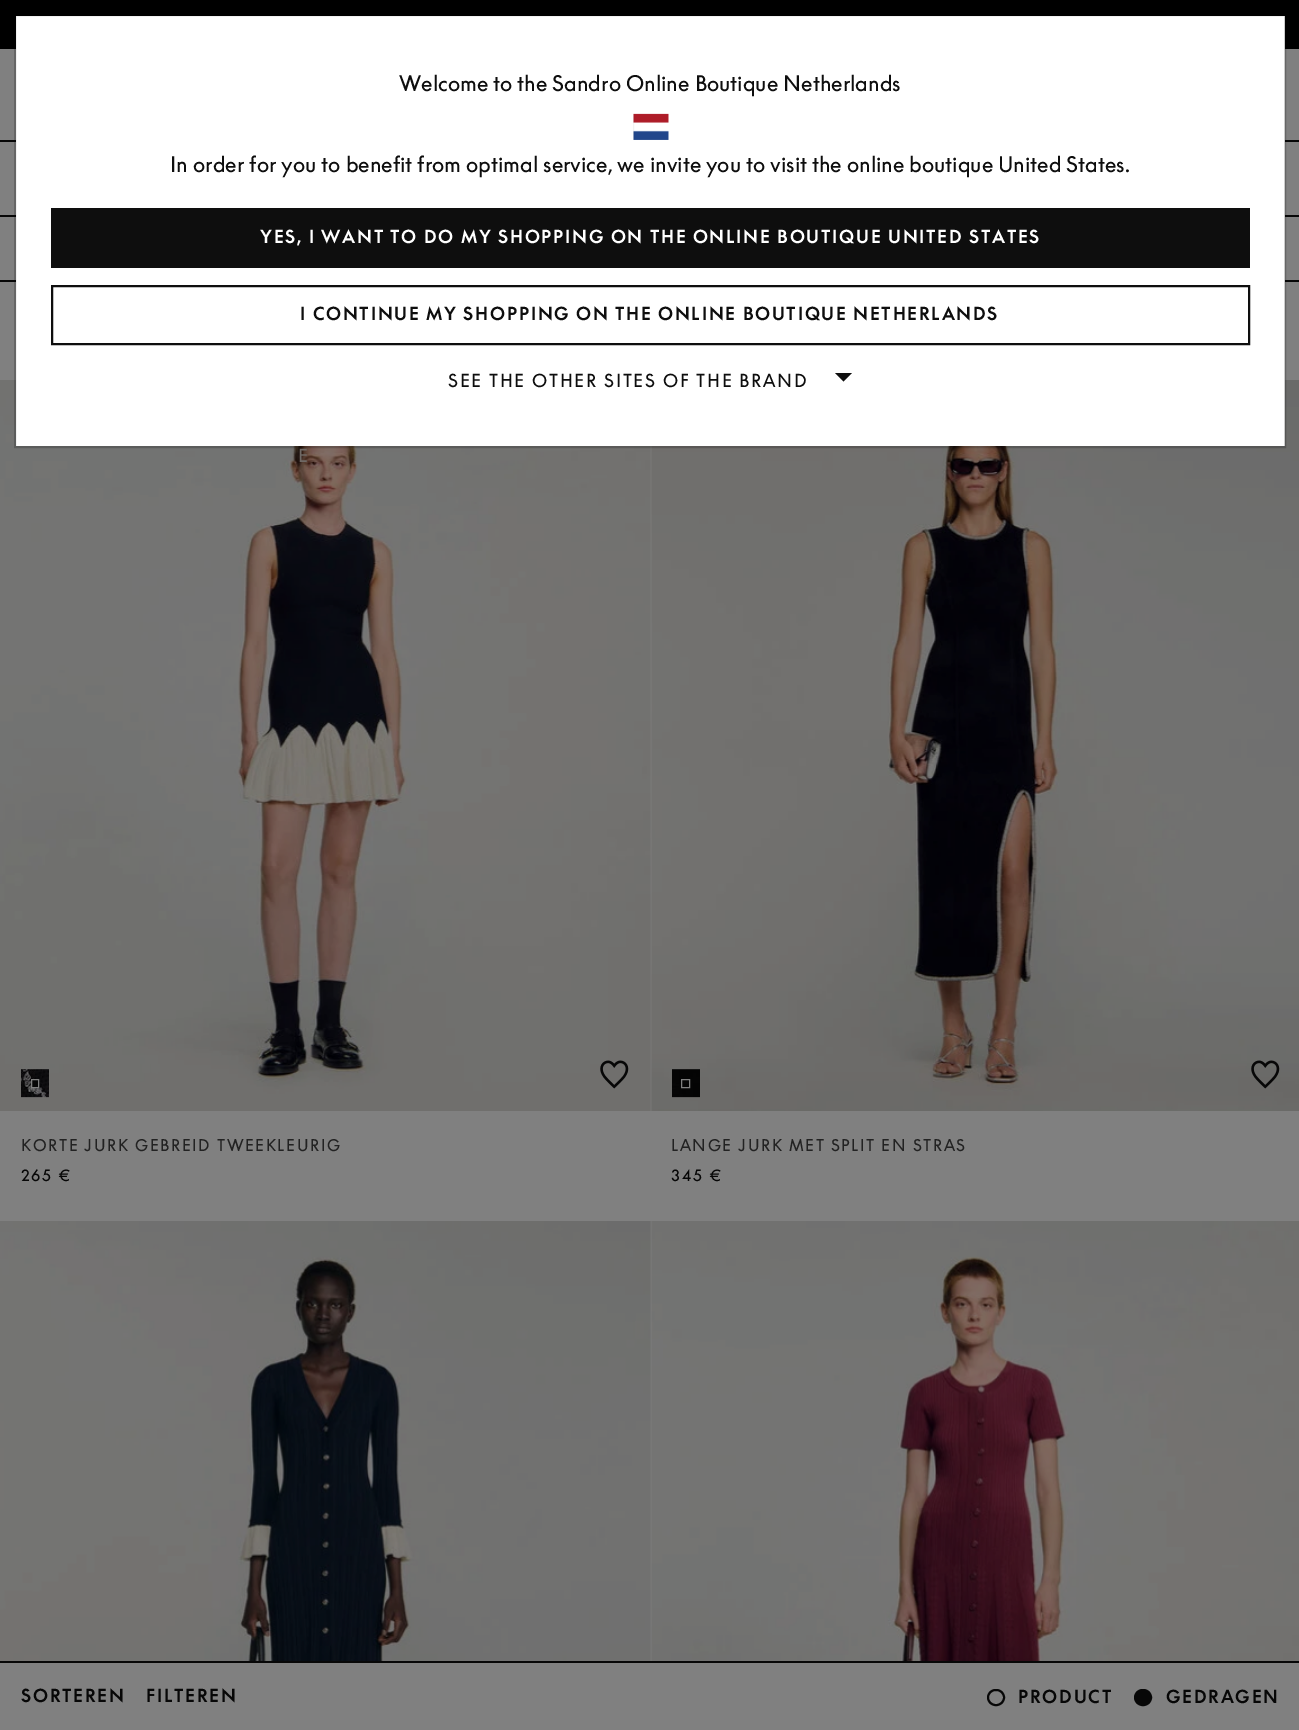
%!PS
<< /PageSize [1299 1730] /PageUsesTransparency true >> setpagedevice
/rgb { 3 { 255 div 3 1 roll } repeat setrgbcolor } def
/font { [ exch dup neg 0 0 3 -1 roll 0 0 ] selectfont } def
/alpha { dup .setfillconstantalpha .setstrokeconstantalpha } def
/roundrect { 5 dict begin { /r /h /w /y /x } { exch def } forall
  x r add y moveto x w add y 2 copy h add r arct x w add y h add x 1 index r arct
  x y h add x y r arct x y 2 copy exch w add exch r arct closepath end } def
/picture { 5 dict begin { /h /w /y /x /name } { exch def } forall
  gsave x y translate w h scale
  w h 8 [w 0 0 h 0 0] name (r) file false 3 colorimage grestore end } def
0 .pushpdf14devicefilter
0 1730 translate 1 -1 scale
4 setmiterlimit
128 128 128 rgb
0 0 1299 1730 rectfill
[
  [0 0 1299 49 0 0 0]
  [0 140 1299 2 7 7 7]
  [0 215 1299 2 7 7 7]
  [0 280 1299 2 7 7 7]
] { aload pop rgb rectfill } forall
(img/2.rgb) 0 380 651 731 picture
(img/6.rgb) 651 380 648 731 picture
255 255 255 rgb
16 16 1269 430 rectfill
0.2 alpha
0 0 0 rgb
2 setlinewidth
15 15 1270 432 rectstroke
1 alpha
(img/1.rgb) 633 113 36 27 picture
14 14 14 rgb
51 208 1199 60 rectfill
52 286 1197 58 rectstroke
835 373 moveto 852 373 lineto 843.5 381.5 lineto closepath fill
(img/3.rgb) 21 1069 28 29 picture
(img/4.rgb) 21 1069 28 29 picture
7 7 7 rgb
31.5 1079.5 moveto 38.5 1079.5 lineto 38.5 1087.5 lineto 31.5 1087.5 lineto closepath gsave fill grestore
128 128 128 rgb
1 setlinewidth
stroke
(img/5.rgb) 600 1060 29 29 picture
(img/7.rgb) 672 1069 28 29 picture
(img/8.rgb) 672 1069 28 29 picture
7 7 7 rgb
682 1080 7 4 rectfill
128 128 128 rgb
681.5 1079.5 8 8 rectstroke
(img/9.rgb) 1251 1060 29 29 picture
(img/10.rgb) 0 1221 651 440 picture
(img/11.rgb) 651 1221 648 440 picture
7 7 7 rgb
0 1661 1299 2 rectfill
2 setlinewidth
988 1690 16 15 7.5 roundrect stroke
1135 1690 16 15 7.5 roundrect gsave fill grestore
stroke
/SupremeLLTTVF-Regular 21 font
14 14 14 rgb
399 91 moveto (Welcome to the Sandro Online Boutique Netherlands) show
170 172 moveto (In order for you to benefit from optimal service, we invite you to visit the online boutique United States.) show
/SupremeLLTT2-Bold 17.5 font
255 255 255 rgb
260 243 moveto 1.75 0 (YES, I WANT TO DO MY SHOPPING ON THE ONLINE BOUTIQUE UNITED STATES) ashow
14 14 14 rgb
300 320 moveto 1.75 0 (I CONTINUE MY SHOPPING ON THE ONLINE BOUTIQUE NETHERLANDS) ashow
/SupremeLLTTVF-Regular 17.5 font
448 387 moveto 1.75 0 (SEE THE OTHER SITES OF THE BRAND) ashow
111 105 101 rgb
298 462 moveto 1.75 0 (E) ashow
/SupremeLLTTVF-Regular 15.75 font
34 34 34 rgb
21 1151 moveto 1.6 0 (KORTE JURK GEBREID TWEEKLEURIG) ashow
7 7 7 rgb
21 1181 moveto 1.6 0 (265 €) ashow
34 34 34 rgb
671 1151 moveto 1.6 0 (LANGE JURK MET SPLIT EN STRAS) ashow
7 7 7 rgb
671 1181 moveto 1.6 0 (345 €) ashow
/SupremeLLTT2-Bold 17.5 font
21 1702 moveto 1.75 0 (SORTEREN) ashow
146 1702 moveto 1.75 0 (FILTEREN) ashow
/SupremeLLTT-Bold 17.5 font
1018 1703 moveto 1.75 0 (PRODUCT) ashow
1166 1703 moveto 1.75 0 (GEDRAGEN) ashow
.poppdf14devicefilter showpage
